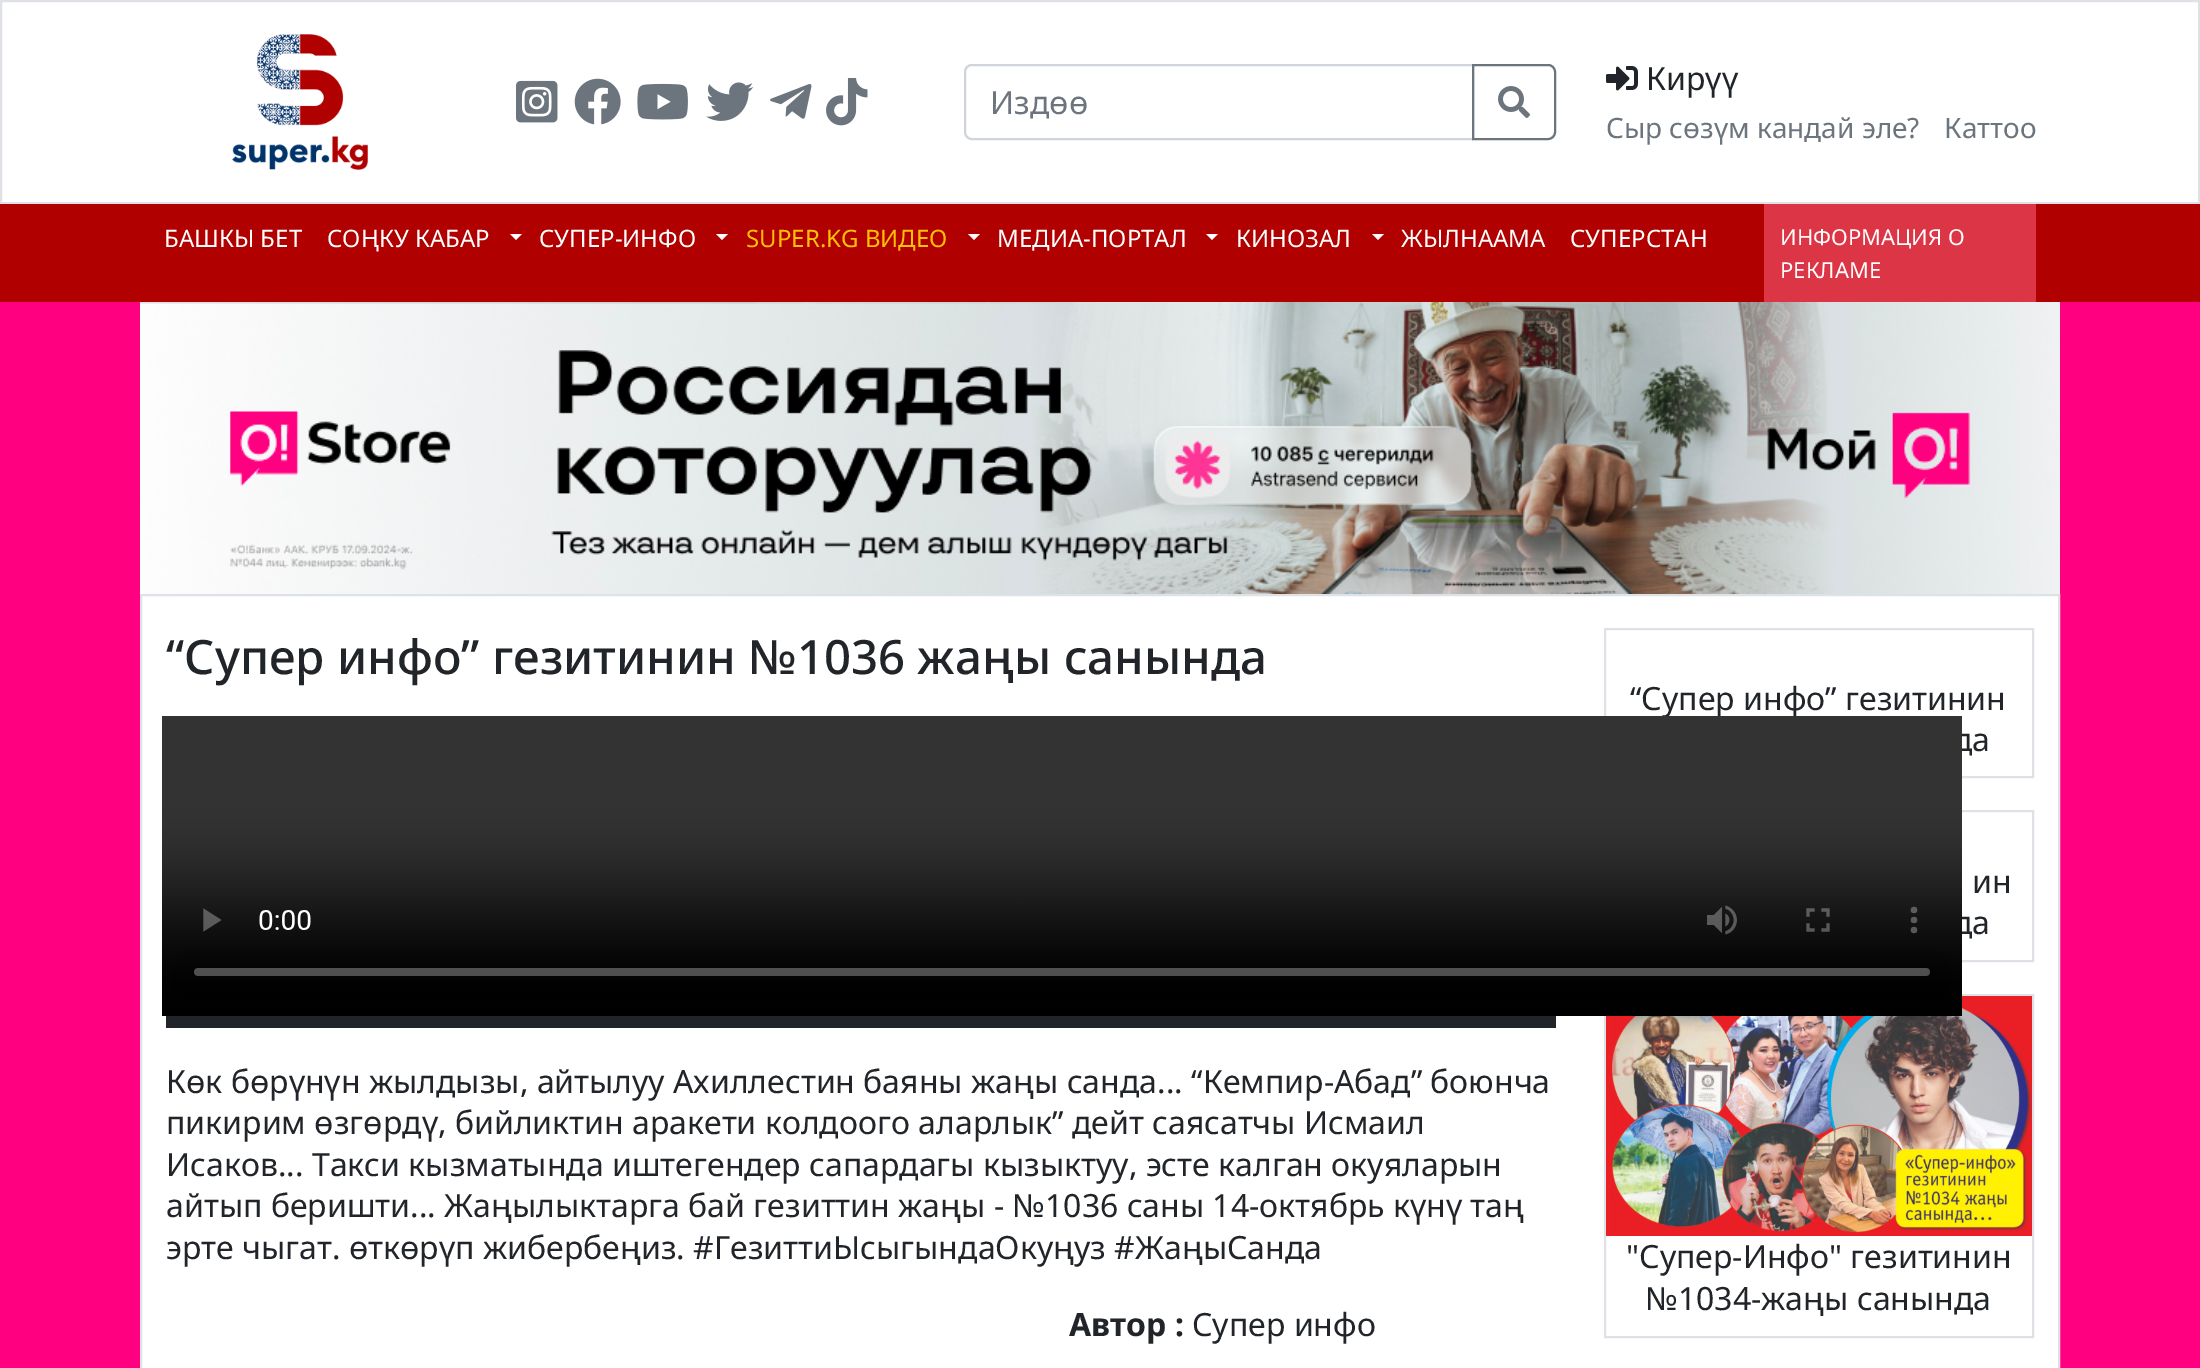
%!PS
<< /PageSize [2200 1368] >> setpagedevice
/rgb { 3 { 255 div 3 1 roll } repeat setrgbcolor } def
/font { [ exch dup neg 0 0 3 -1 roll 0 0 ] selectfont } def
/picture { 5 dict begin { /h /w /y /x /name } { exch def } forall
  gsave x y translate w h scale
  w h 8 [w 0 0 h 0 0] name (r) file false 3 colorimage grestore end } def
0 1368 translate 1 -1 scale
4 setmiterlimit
255 0 128 rgb
0 0 2200 1368 rectfill
255 255 255 rgb
1 1 moveto 2199 1 lineto 2199 203 lineto 1 203 lineto closepath gsave fill grestore
222 226 230 rgb
2 setlinewidth
stroke
(img/1.rgb) 232 34 136 136 picture
(img/2.rgb) 516 80 42 43 picture
(img/3.rgb) 574 78 47 47 picture
(img/4.rgb) 637 83 51 37 picture
(img/5.rgb) 706 82 48 39 picture
(img/6.rgb) 770 84 42 35 picture
(img/7.rgb) 826 78 42 48 picture
206 212 218 rgb
972 65 moveto 1473 65 lineto 1473 139 lineto 972 139 lineto 968 139 965 136 965 132 curveto 965 72 lineto 965 68 968 65 972 65 curveto closepath stroke
108 117 125 rgb
1473 65 moveto 1548 65 lineto 1552 65 1555 68 1555 72 curveto 1555 132 lineto 1555 136 1552 139 1548 139 curveto 1473 139 lineto closepath stroke
(img/8.rgb) 1498 86 32 32 picture
(img/9.rgb) 1606 66 32 25 picture
176 0 0 rgb
0 204 2200 98 rectfill
255 255 255 rgb
510 234 moveto 522 234 lineto 516 240 lineto closepath fill
716 234 moveto 728 234 lineto 722 240 lineto closepath fill
968 234 moveto 980 234 lineto 974 240 lineto closepath fill
1206 234 moveto 1218 234 lineto 1212 240 lineto closepath fill
1372 234 moveto 1384 234 lineto 1378 240 lineto closepath fill
220 53 69 rgb
1764 204 272 98 rectfill
(img/10.rgb) 140 302 1920 292 picture
255 255 255 rgb
141 595 moveto 2059 595 lineto 2059 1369 lineto 141 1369 lineto closepath gsave fill grestore
222 226 230 rgb
stroke
33 37 41 rgb
166 1016 1390 12 rectfill
222 226 230 rgb
1605 629 428 148 rectstroke
1605 811 428 150 rectstroke
1605 995 428 342 rectstroke
(img/12.rgb) 1606 996 426 240 picture
/NotoSans-Regular 32 font
108 117 125 rgb
990 114 moveto (Издөө) show
33 37 41 rgb
1646 90 moveto (Кирүү) show
/NotoSans-Regular 28 font
108 117 125 rgb
1606 138 moveto (Сыр сөзүм кандай эле?) show
1944 138 moveto (Каттоо) show
/NotoSans-Regular 24 font
255 255 255 rgb
[
  [(БАШКЫ БЕТ) 164 247]
  [(СОҢКУ КАБАР) 327 247]
  [(СУПЕР-ИНФО) 539 247]
] { aload pop moveto show } forall
255 193 7 rgb
746 247 moveto (SUPER.KG ВИДЕО) show
255 255 255 rgb
[
  [(МЕДИА-ПОРТАЛ) 997 247]
  [(КИНОЗАЛ) 1236 247]
  [(ЖЫЛНААМА) 1401 247]
  [(СУПЕРСТАН) 1570 247]
] { aload pop moveto show } forall
/NotoSans-Regular 22 font
1780 245 moveto (ИНФОРМАЦИЯ О) show
1780 278 moveto (РЕКЛАМЕ) show
/NotoSans-Medium 47.4 font
33 37 41 rgb
166 674 moveto (“Супер инфо” гезитинин №1036 жаңы санында) show
/NotoSans-Regular 32 font
[
  [(Көк бөрүнүн жылдызы, айтылуу Ахиллестин баяны жаңы санда... “Кемпир-Абад” боюнча) 166 1093]
  [(пикирим өзгөрдү, бийликтин аракети колдоого аларлык” дейт саясатчы Исмаил) 166 1134]
  [(Исаков... Такси кызматында иштегендер сапардагы кызыктуу, эсте калган окуяларын) 166 1176]
  [(айтып беришти... Жаңылыктарга бай гезиттин жаңы - №1036 саны 14-октябрь күнү таң) 166 1217]
  [(эрте чыгат. өткөрүп жибербеңиз. #ГезиттиЫсыгындаОкуңуз #ЖаңыСанда) 166 1259]
] { aload pop moveto show } forall
/NotoSans-Bold 32 font
1069 1336 moveto (Автор :) show
/NotoSans-Regular 32 font
[
  [(Супер инфо) 1192 1336]
  [(“Супер инфо” гезитинин) 1630 710]
  [(да) 1953 751]
  [(ин) 1972 893]
  [(да) 1953 934]
] { aload pop moveto show } forall
(img/11.rgb) 162 716 1800 300 picture
1626 1268 moveto ("Супер-Инфо" гезитинин) show
1645 1310 moveto (№1034-жаңы санында) show
showpage
